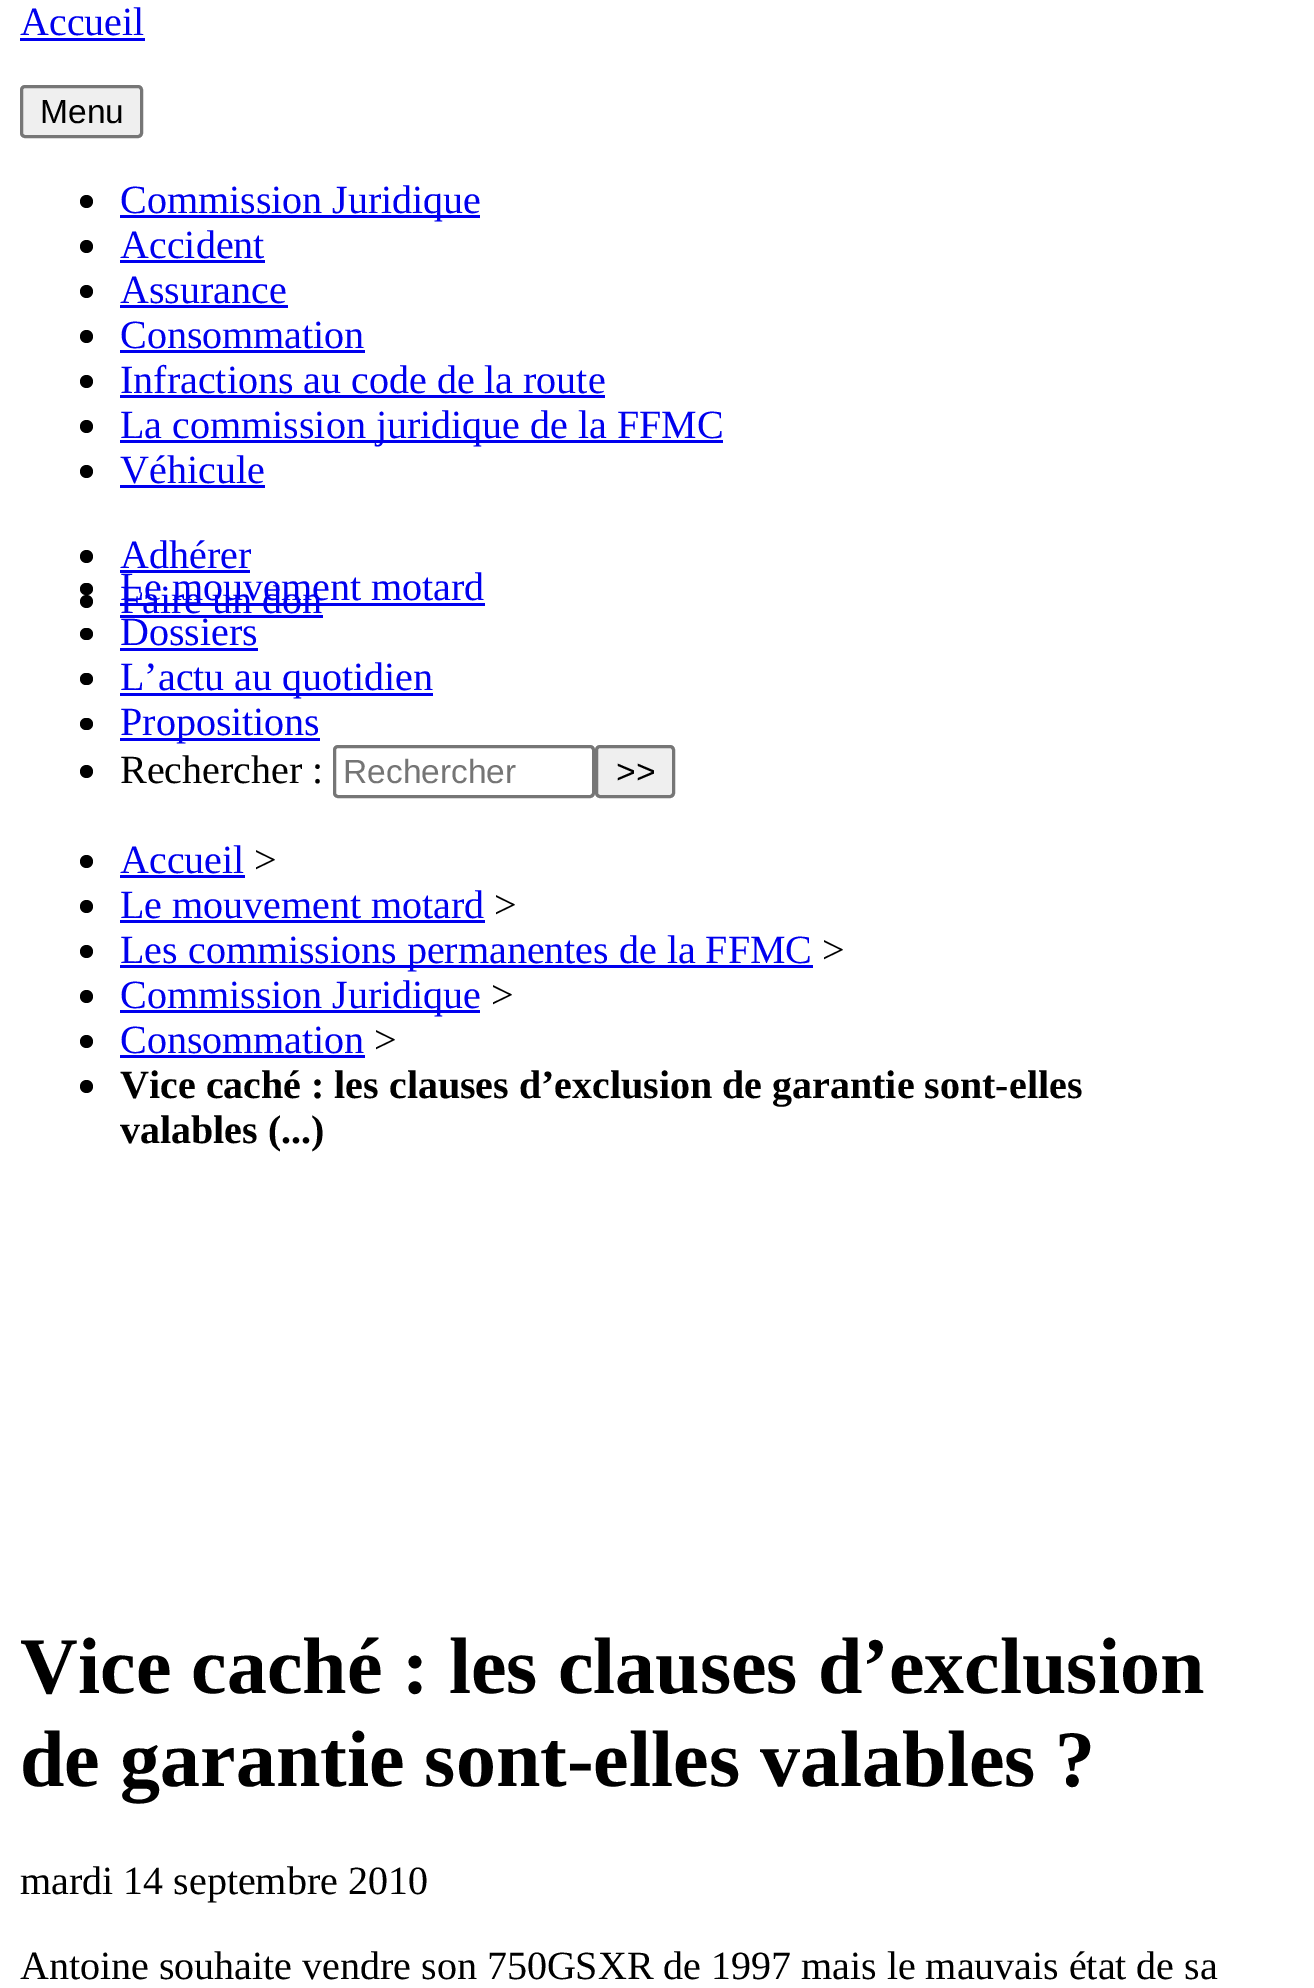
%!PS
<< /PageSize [1314 1988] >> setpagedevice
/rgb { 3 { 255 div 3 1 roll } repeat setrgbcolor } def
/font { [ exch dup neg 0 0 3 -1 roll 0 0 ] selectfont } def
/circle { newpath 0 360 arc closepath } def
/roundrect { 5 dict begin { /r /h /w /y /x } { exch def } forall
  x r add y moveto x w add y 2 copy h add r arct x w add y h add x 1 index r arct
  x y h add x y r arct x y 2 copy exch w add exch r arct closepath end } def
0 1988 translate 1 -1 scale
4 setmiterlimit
255 255 255 rgb
0 0 1314 1988 rectfill
0 0 238 rgb
20 38 125 3 rectfill
239 239 239 rgb
21.5 86.5 120 50 3.5 roundrect gsave fill grestore
118 118 118 rgb
3 setlinewidth
stroke
0 0 0 rgb
86.5 201.5 6.5 circle fill
0 0 238 rgb
120 215 360 3 rectfill
0 0 0 rgb
86.5 246.5 6.5 circle fill
0 0 238 rgb
120 260 145 3 rectfill
0 0 0 rgb
86.5 291.5 6.5 circle fill
0 0 238 rgb
120 305 168 3 rectfill
0 0 0 rgb
86.5 336.5 6.5 circle fill
0 0 238 rgb
120 350 245 3 rectfill
0 0 0 rgb
86.5 381.5 6.5 circle fill
0 0 238 rgb
120 395 485 3 rectfill
0 0 0 rgb
86.5 426.5 6.5 circle fill
0 0 238 rgb
120 440 603 3 rectfill
0 0 0 rgb
86.5 471.5 6.5 circle fill
0 0 238 rgb
120 485 145 3 rectfill
0 0 0 rgb
86.5 556.5 6.5 circle fill
0 0 238 rgb
120 570 130 3 rectfill
0 0 0 rgb
86.5 601.5 6.5 circle fill
0 0 238 rgb
120 615 203 3 rectfill
0 0 0 rgb
80 583 13 12 6 roundrect fill
0 0 238 rgb
120 603 365 3 rectfill
0 0 0 rgb
80 628 13 12 6 roundrect fill
0 0 238 rgb
120 648 138 3 rectfill
0 0 0 rgb
80 673 13 12 6 roundrect fill
0 0 238 rgb
120 693 313 3 rectfill
0 0 0 rgb
80 718 13 12 6 roundrect fill
0 0 238 rgb
120 738 200 3 rectfill
0 0 0 rgb
86.5 771.5 6.5 circle fill
118 118 118 rgb
334.5 746.5 259 50 3.5 roundrect stroke
239 239 239 rgb
596.5 746.5 77 50 3.5 roundrect gsave fill grestore
118 118 118 rgb
stroke
0 0 0 rgb
86.5 861.5 6.5 circle fill
0 0 238 rgb
120 875 125 3 rectfill
0 0 0 rgb
86.5 906.5 6.5 circle fill
0 0 238 rgb
120 920 365 3 rectfill
0 0 0 rgb
86.5 951.5 6.5 circle fill
0 0 238 rgb
120 965 693 3 rectfill
0 0 0 rgb
86.5 996.5 6.5 circle fill
0 0 238 rgb
120 1010 360 3 rectfill
0 0 0 rgb
86.5 1041.5 6.5 circle fill
0 0 238 rgb
120 1055 245 3 rectfill
0 0 0 rgb
86.5 1086.5 6.5 circle fill
/LiberationSerif-Regular 40 font
0 0 238 rgb
20 35 moveto (Accueil) show
/LiberationSans-Regular 33.5 font
0 0 0 rgb
40 123 moveto (Menu) show
/LiberationSerif-Regular 40 font
0 0 238 rgb
[
  [(Commission Juridique) 120 213]
  [(Accident) 120 258]
  [(Assurance) 120 303]
  [(Consommation) 120 348]
  [(Infractions au code de la route) 120 393]
  [(La commission juridique de la FFMC) 120 438]
  [(Véhicule) 120 483]
  [(Adhérer) 120 568]
  [(Le mouvement motard) 120 600]
  [(Faire un don) 120 613]
  [(Dossiers) 120 645]
  [(L’actu au quotidien) 120 690]
  [(Propositions) 120 735]
] { aload pop moveto show } forall
0 0 0 rgb
120 783 moveto (Rechercher :) show
/LiberationSans-Regular 33.5 font
117 117 117 rgb
343 783 moveto (Rechercher) show
0 0 0 rgb
616 783 moveto (>>) show
/LiberationSerif-Regular 40 font
0 0 238 rgb
120 873 moveto (Accueil) show
0 0 0 rgb
254 873 moveto (>) show
0 0 238 rgb
120 918 moveto (Le mouvement motard) show
0 0 0 rgb
494 918 moveto (>) show
0 0 238 rgb
120 963 moveto (Les commissions permanentes de la FFMC) show
0 0 0 rgb
822 963 moveto (>) show
0 0 238 rgb
120 1008 moveto (Commission Juridique) show
0 0 0 rgb
491 1008 moveto (>) show
0 0 238 rgb
120 1053 moveto (Consommation) show
0 0 0 rgb
374 1053 moveto (>) show
/LiberationSerif-Bold 40 font
120 1098 moveto (Vice caché : les clauses d’exclusion de garantie sont-elles) show
120 1143 moveto (valables \(...\)) show
/LiberationSerif-Bold 80 font
20 1693 moveto (Vice caché : les clauses d’exclusion) show
20 1786 moveto (de garantie sont-elles valables ?) show
/LiberationSerif-Regular 40 font
20 1894 moveto (mardi 14 septembre 2010) show
20 1979 moveto (Antoine souhaite vendre son 750GSXR de 1997 mais le mauvais état de sa) show
showpage
